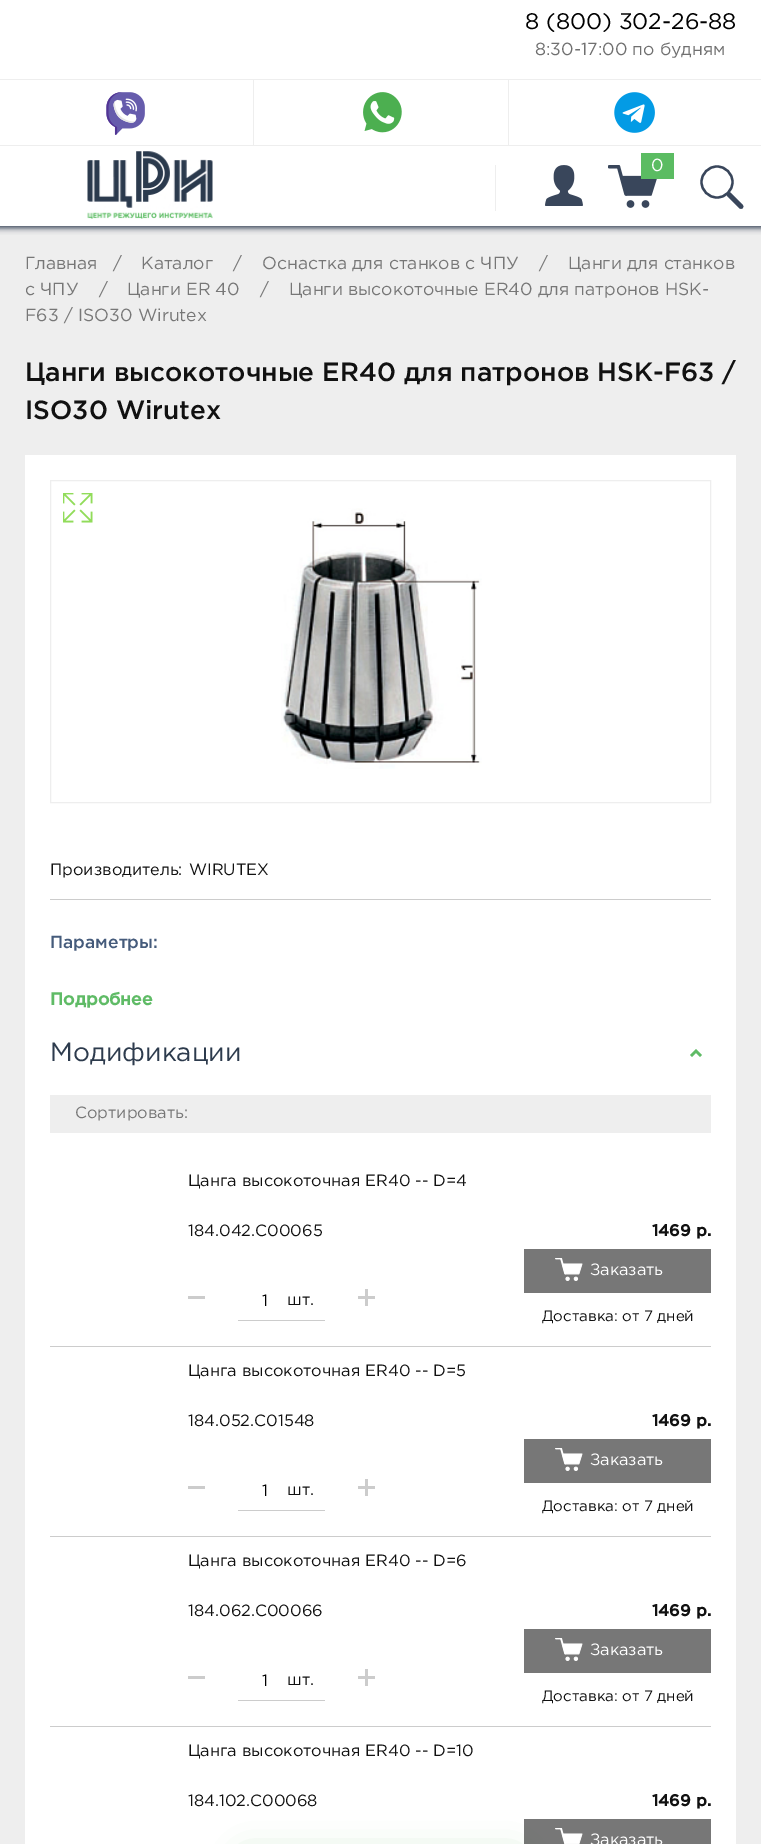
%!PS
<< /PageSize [761 1844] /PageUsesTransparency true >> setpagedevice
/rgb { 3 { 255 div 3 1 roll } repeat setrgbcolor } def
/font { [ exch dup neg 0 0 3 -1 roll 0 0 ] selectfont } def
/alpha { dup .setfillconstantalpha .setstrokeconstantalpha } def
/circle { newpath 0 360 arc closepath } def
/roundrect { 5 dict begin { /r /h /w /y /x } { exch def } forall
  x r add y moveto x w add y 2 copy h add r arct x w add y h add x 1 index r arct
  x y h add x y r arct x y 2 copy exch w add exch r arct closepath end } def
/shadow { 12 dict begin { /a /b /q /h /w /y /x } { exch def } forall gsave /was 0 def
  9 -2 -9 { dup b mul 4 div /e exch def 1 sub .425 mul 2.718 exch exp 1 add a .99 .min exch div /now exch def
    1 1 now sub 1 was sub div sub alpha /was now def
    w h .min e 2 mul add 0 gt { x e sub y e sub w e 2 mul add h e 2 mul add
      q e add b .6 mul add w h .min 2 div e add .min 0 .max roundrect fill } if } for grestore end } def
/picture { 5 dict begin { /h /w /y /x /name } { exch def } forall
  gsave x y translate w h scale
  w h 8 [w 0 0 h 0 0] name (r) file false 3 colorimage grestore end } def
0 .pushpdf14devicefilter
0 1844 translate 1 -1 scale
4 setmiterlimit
238 238 238 rgb
0 0 761 1844 rectfill
44 58 78 rgb
-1 -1 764 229 0 3 1 shadow
255 255 255 rgb
0 0 761 226 rectfill
238 238 238 rgb
495 165 1 46 rectfill
(img/1.rgb) 545 165 38 41 picture
(img/2.rgb) 608 165 49 43 picture
91 188 98 rgb
641 153 33 26 rectfill
57 70 91 rgb
2.3 setlinewidth
717 182 15.5 circle stroke
4.7 setlinewidth
1 setlinecap
1 setlinejoin
729 194.5 moveto 741 206.5 lineto stroke
(img/3.rgb) 87 151 126 68 picture
[
  [0 79 761 1 238 238 238]
  [0 145 761 1 238 238 238]
  [253 80 1 65 238 238 238]
] { aload pop rgb rectfill } forall
(img/4.rgb) 106 92 39 43 picture
(img/5.rgb) 363 92 39 41 picture
508 80 1 65 rectfill
(img/6.rgb) 614 92 41 41 picture
255 255 255 rgb
25 455 711 1389 rectfill
238 238 238 rgb
1 setlinewidth
0 setlinecap
0 setlinejoin
50.5 480.5 660 322 rectstroke
(img/7.rgb) 281 508 201 261 picture
(img/8.rgb) 63 493 30 30 picture
204 204 204 rgb
50 899 661 1 rectfill
95 187 102 rgb
2.5 setlinewidth
691 1056 moveto 696 1051 lineto 701 1056 lineto stroke
[
  [50 1095 661 38 238 238 238]
  [50 1346 661 1 204 204 204]
  [188 1296 17 3 204 204 204]
  [238 1320 87 1 204 204 204]
  [358 1296 17 3 204 204 204]
  [365 1289 3 17 204 204 204]
  [524 1249 187 44 119 119 119]
] { aload pop rgb rectfill } forall
(img/9.rgb) 555 1258 28 23 picture
[
  [50 1536 661 1 204 204 204]
  [188 1486 17 3 204 204 204]
  [238 1510 87 1 204 204 204]
  [358 1486 17 3 204 204 204]
  [365 1479 3 17 204 204 204]
  [524 1439 187 44 119 119 119]
] { aload pop rgb rectfill } forall
(img/9.rgb) 555 1448 28 23 picture
[
  [50 1726 661 1 204 204 204]
  [188 1676 17 3 204 204 204]
  [238 1700 87 1 204 204 204]
  [358 1676 17 3 204 204 204]
  [365 1669 3 17 204 204 204]
  [524 1629 187 44 119 119 119]
] { aload pop rgb rectfill } forall
(img/9.rgb) 555 1638 28 23 picture
524 1819 187 25 rectfill
(img/10.rgb) 555 1828 28 16 picture
0 146 11 rgb
246 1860 269 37 0 17.5 0.3 shadow
/Gotham-Regular 22.5 font
0 0 0 rgb
525 29 moveto (8 \(800\) 302-26-88) show
/Gotham-Regular 17.5 font
112 112 112 rgb
535 55 moveto (8:30-17:00 по будням) show
255 255 255 rgb
651 171 moveto (0) show
119 119 119 rgb
[
  [(Главная) 25 269]
  [(/) 113 269]
  [(Каталог) 141 269]
  [(/) 233 269]
  [(Оснастка для станков с ЧПУ) 262 269]
  [(/) 539 269]
  [(Цанги для станков) 568 269]
  [(с ЧПУ) 25 295]
  [(/) 99 295]
  [(Цанги ER 40) 127 295]
  [(/) 260 295]
  [(Цанги высокоточные ER40 для патронов HSK-) 289 295]
  [(F63 / ISO30 Wirutex) 25 321]
] { aload pop moveto show } forall
/Gotham-Medium 26.25 font
17 17 17 rgb
25 381 moveto (Цанги высокоточные ER40 для патронов HSK-F63 /) show
25 419 moveto (ISO30 Wirutex) show
/Gotham-Regular 16.25 font
50 875 moveto (Производитель:) show
189 875 moveto (WIRUTEX) show
/Gotham-Medium 17.5 font
69 91 123 rgb
50 948 moveto (Параметры:) show
/Gotham-Bold 17.5 font
95 187 102 rgb
50 1005 moveto (Подробнее) show
/Gotham-Regular 26.25 font
45 59 77 rgb
50 1061 moveto (Модификации) show
/Gotham-Regular 16.25 font
119 119 119 rgb
75 1118 moveto (Сортировать:) show
17 17 17 rgb
188 1186 moveto (Цанга высокоточная ER40 -- D=4) show
188 1236 moveto (184.042.C00065) show
/Gotham-Bold 16.25 font
652 1236 moveto (1469 р.) show
/Gotham-Regular 16.25 font
0 0 0 rgb
262 1306 moveto (1) show
17 17 17 rgb
287 1305 moveto (шт.) show
255 255 255 rgb
590 1275 moveto (Заказать) show
/Gotham-Regular 15 font
17 17 17 rgb
542 1321 moveto (Доставка: от 7 дней) show
/Gotham-Regular 16.25 font
188 1376 moveto (Цанга высокоточная ER40 -- D=5) show
188 1426 moveto (184.052.C01548) show
/Gotham-Bold 16.25 font
652 1426 moveto (1469 р.) show
/Gotham-Regular 16.25 font
0 0 0 rgb
262 1496 moveto (1) show
17 17 17 rgb
287 1495 moveto (шт.) show
255 255 255 rgb
590 1465 moveto (Заказать) show
/Gotham-Regular 15 font
17 17 17 rgb
542 1511 moveto (Доставка: от 7 дней) show
/Gotham-Regular 16.25 font
188 1566 moveto (Цанга высокоточная ER40 -- D=6) show
188 1616 moveto (184.062.C00066) show
/Gotham-Bold 16.25 font
652 1616 moveto (1469 р.) show
/Gotham-Regular 16.25 font
0 0 0 rgb
262 1686 moveto (1) show
17 17 17 rgb
287 1685 moveto (шт.) show
255 255 255 rgb
590 1655 moveto (Заказать) show
/Gotham-Regular 15 font
17 17 17 rgb
542 1701 moveto (Доставка: от 7 дней) show
/Gotham-Regular 16.25 font
188 1756 moveto (Цанга высокоточная ER40 -- D=10) show
188 1806 moveto (184.102.C00068) show
/Gotham-Bold 16.25 font
652 1806 moveto (1469 р.) show
/Gotham-Regular 16.25 font
255 255 255 rgb
590 1845 moveto (Заказать) show
.poppdf14devicefilter showpage
